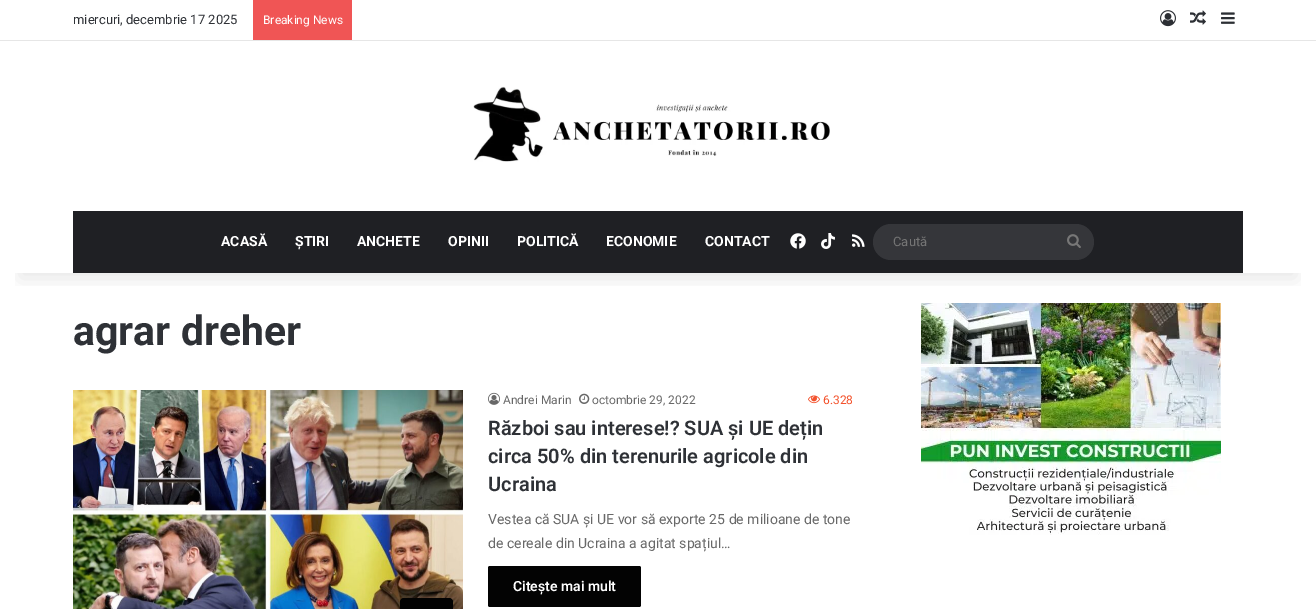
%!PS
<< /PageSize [1316 609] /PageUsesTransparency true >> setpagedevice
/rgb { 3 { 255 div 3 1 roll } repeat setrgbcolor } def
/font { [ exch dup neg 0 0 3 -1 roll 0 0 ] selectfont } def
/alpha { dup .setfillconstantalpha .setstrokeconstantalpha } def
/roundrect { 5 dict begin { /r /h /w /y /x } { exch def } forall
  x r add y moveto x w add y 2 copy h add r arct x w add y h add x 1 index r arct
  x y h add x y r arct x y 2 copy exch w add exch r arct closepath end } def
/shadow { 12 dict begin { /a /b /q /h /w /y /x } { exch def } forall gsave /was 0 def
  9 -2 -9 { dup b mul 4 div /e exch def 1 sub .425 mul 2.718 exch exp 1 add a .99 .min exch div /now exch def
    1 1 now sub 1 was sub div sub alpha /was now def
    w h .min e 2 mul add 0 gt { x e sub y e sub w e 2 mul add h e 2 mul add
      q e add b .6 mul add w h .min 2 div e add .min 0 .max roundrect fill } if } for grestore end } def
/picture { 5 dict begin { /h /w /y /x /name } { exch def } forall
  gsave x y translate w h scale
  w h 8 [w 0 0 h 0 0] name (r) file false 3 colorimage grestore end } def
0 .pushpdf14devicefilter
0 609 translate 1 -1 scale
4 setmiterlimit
255 255 255 rgb
0 0 1316 609 rectfill
(img/13.rgb) 921 303 300 232 picture
gsave
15 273 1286 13 rectclip
0 0 0 rgb
20 45 1276 233 0 10 0.1 shadow
grestore
230 230 230 rgb
0 40 1316 1 rectfill
240 85 85 rgb
253 0 99 40 rectfill
(img/1.rgb) 1160 10 16 17 picture
(img/2.rgb) 1190 10 16 15 picture
(img/3.rgb) 1221 12 14 12 picture
(img/4.rgb) 473 86 357 76 picture
31 32 36 rgb
73 211 1170 62 rectfill
(img/5.rgb) 790 233 16 16 picture
(img/6.rgb) 821 233 14 16 picture
(img/7.rgb) 852 234 13 13 picture
53 54 58 rgb
873 224 221 36 18 roundrect fill
(img/8.rgb) 1067 234 14 14 picture
(img/9.rgb) 73 390 390 219 picture
3 3 3 rgb
400 598 53 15 4 roundrect fill
(img/10.rgb) 488 392 12 13 picture
(img/11.rgb) 579 393 11 11 picture
(img/12.rgb) 808 395 12 9 picture
488 566 153 41 2 roundrect fill
/Roboto-Regular 13 font
46 49 54 rgb
73 24 moveto (miercuri, decembrie 17 2025) show
/Roboto-Regular 12 font
255 255 255 rgb
263 24 moveto (Breaking News) show
/Roboto-Bold 14 font
[
  [(ACASĂ) 221 246]
  [(ȘTIRI) 295 246]
  [(ANCHETE) 357 246]
  [(OPINII) 448 246]
  [(POLITICĂ) 517 246]
  [(ECONOMIE) 606 246]
  [(CONTACT) 705 246]
] { aload pop moveto show } forall
/Roboto-Regular 13 font
117 117 117 rgb
893 246 moveto (Caută) show
/Roboto-Bold 41 font
46 49 54 rgb
73 345 moveto (agrar dreher) show
/Roboto-Regular 12 font
104 104 104 rgb
503 404 moveto (Andrei Marin) show
592 404 moveto (octombrie 29, 2022) show
243 82 44 rgb
823 404 moveto (6.328) show
/Roboto-SemiBold 20 font
46 49 54 rgb
[
  [(Război sau interese!? SUA și UE dețin) 488 435]
  [(circa 50% din terenurile agricole din) 488 463]
  [(Ucraina) 488 491]
] { aload pop moveto show } forall
/Roboto-Regular 14 font
104 104 104 rgb
488 524 moveto (Vestea că SUA și UE vor să exporte 25 de milioane de tone) show
488 548 moveto (de cereale din Ucraina a agitat spațiul…) show
/Roboto-SemiBold 14 font
255 255 255 rgb
513 591 moveto (Citește mai mult) show
.poppdf14devicefilter showpage
